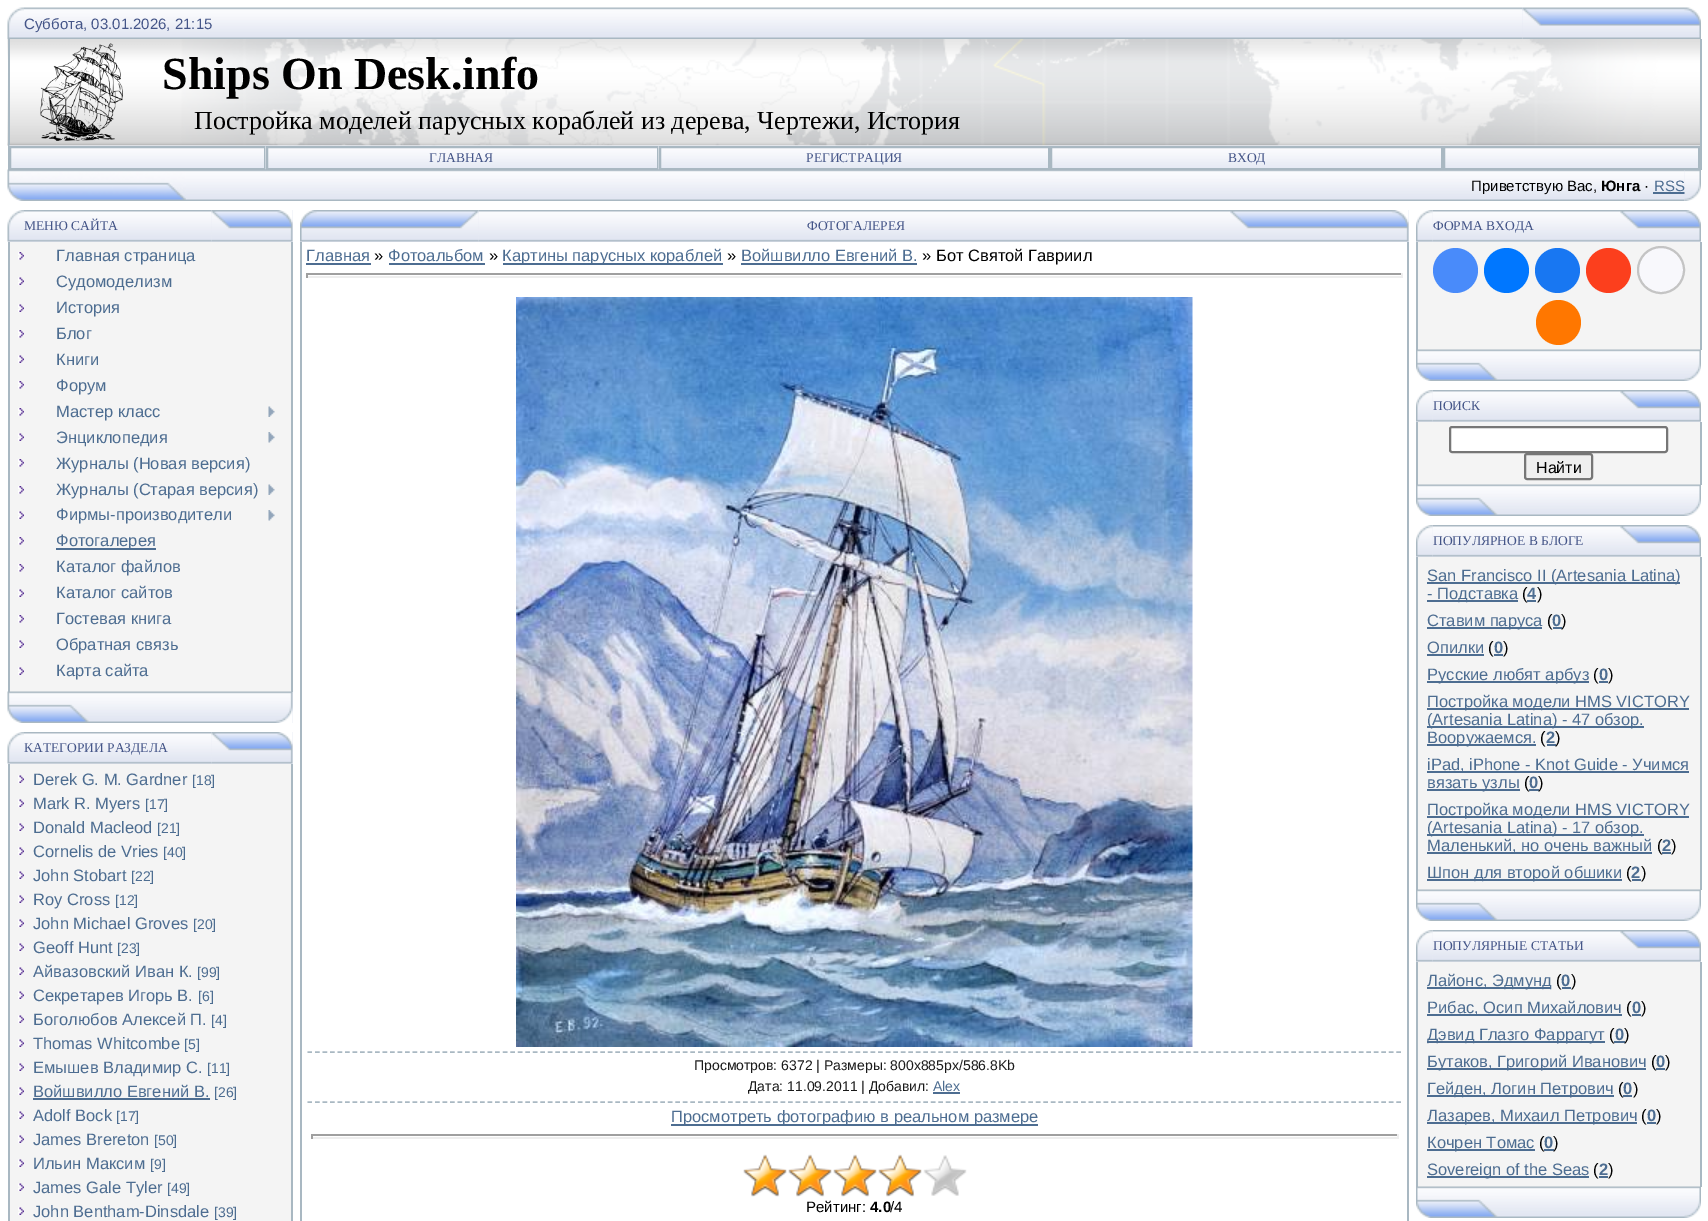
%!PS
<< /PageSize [1708 1221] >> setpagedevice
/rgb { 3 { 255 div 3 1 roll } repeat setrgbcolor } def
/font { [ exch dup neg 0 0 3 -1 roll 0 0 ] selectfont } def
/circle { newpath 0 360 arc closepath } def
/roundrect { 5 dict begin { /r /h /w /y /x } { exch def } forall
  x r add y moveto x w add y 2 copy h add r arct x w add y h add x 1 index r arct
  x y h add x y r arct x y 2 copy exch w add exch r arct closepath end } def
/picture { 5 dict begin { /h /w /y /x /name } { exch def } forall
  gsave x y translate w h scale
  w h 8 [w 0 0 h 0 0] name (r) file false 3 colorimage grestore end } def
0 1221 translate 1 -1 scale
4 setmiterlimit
255 255 255 rgb
0 0 1708 1221 rectfill
(img/1.rgb) 7 7 17 32 picture
(img/2.rgb) 24 7 1499 32 picture
(img/3.rgb) 1522 7 179 32 picture
(img/4.rgb) 7 39 1693 107 picture
169 184 194 rgb
1700 39 2 131 rectfill
8 39 2 107 rectfill
(img/5.rgb) 40 43 83 98 picture
8 146 1 24 rectfill
(img/6.rgb) 9 145 257 23 picture
2 setlinewidth
10 147 255 22 rectstroke
(img/7.rgb) 265 145 394 25 picture
267 147 391 22 rectstroke
(img/8.rgb) 658 145 392 25 picture
660 147 389 22 rectstroke
(img/9.rgb) 1050 145 393 23 picture
1051 147 391 22 rectstroke
(img/10.rgb) 1443 145 257 23 picture
1444 147 255 22 rectstroke
(img/11.rgb) 7 169 179 32 picture
(img/12.rgb) 186 169 1499 32 picture
77 109 145 rgb
1653 192 32 2 rectfill
(img/13.rgb) 1684 170 17 31 picture
233 236 245 rgb
8 210 285 32 rectfill
(img/14.rgb) 7 210 17 32 picture
(img/15.rgb) 24 210 188 32 picture
(img/16.rgb) 211 210 82 32 picture
[
  [10 242 281 450 244 244 244]
  [291 242 2 450 169 184 194]
  [8 242 2 450 169 184 194]
] { aload pop rgb rectfill } forall
(img/17.rgb) 18 252 6 8 picture
(img/18.rgb) 18 277 6 8 picture
(img/18.rgb) 18 304 6 8 picture
(img/17.rgb) 18 330 6 8 picture
(img/18.rgb) 18 355 6 8 picture
(img/17.rgb) 18 381 6 8 picture
(img/17.rgb) 18 408 6 8 picture
(img/19.rgb) 268 406 7 11 picture
(img/18.rgb) 18 433 6 8 picture
(img/20.rgb) 268 432 7 11 picture
(img/17.rgb) 18 459 6 8 picture
(img/17.rgb) 18 486 6 8 picture
(img/19.rgb) 268 484 7 11 picture
(img/18.rgb) 18 511 6 8 picture
(img/20.rgb) 268 510 7 11 picture
(img/17.rgb) 18 537 6 8 picture
77 109 145 rgb
56 548 100 2 rectfill
(img/17.rgb) 18 564 6 8 picture
(img/18.rgb) 18 589 6 8 picture
(img/17.rgb) 18 615 6 8 picture
(img/18.rgb) 18 640 6 8 picture
(img/18.rgb) 18 667 6 8 picture
233 236 245 rgb
292 692 1 31 rectfill
(img/21.rgb) 7 691 286 32 picture
8 732 285 32 rectfill
(img/14.rgb) 7 732 17 32 picture
(img/15.rgb) 24 732 188 32 picture
(img/16.rgb) 211 732 82 32 picture
[
  [10 764 281 457 244 244 244]
  [291 764 2 457 169 184 194]
  [8 764 2 457 169 184 194]
] { aload pop rgb rectfill } forall
(img/18.rgb) 18 775 6 8 picture
(img/18.rgb) 18 799 6 8 picture
(img/18.rgb) 18 823 6 8 picture
(img/18.rgb) 18 847 6 8 picture
(img/18.rgb) 18 871 6 8 picture
(img/18.rgb) 18 895 6 8 picture
(img/18.rgb) 18 919 6 8 picture
(img/18.rgb) 18 943 6 8 picture
(img/18.rgb) 18 967 6 8 picture
(img/18.rgb) 18 991 6 8 picture
(img/18.rgb) 18 1015 6 8 picture
(img/18.rgb) 18 1039 6 8 picture
(img/18.rgb) 18 1063 6 8 picture
(img/18.rgb) 18 1087 6 8 picture
77 109 145 rgb
33 1098 177 2 rectfill
(img/18.rgb) 18 1111 6 8 picture
(img/18.rgb) 18 1135 6 8 picture
(img/18.rgb) 18 1159 6 8 picture
(img/18.rgb) 18 1183 6 8 picture
(img/18.rgb) 18 1207 6 8 picture
233 236 245 rgb
300 210 179 32 rectfill
479 241 751 1 rectfill
(img/23.rgb) 478 210 752 32 picture
(img/22.rgb) 300 210 179 32 picture
1230 210 179 32 rectfill
(img/24.rgb) 1230 210 179 32 picture
[
  [1407 242 2 979 169 184 194]
  [300 242 2 979 169 184 194]
  [306 263 65 2 77 109 145]
  [389 263 96 2 77 109 145]
  [503 263 220 2 77 109 145]
  [741 263 176 2 77 109 145]
  [306 273 1097 2 159 159 159]
  [1401 273 2 5 238 238 238]
  [306 276 1097 2 238 238 238]
  [306 273 2 5 159 159 159]
] { aload pop rgb rectfill } forall
(img/25.rgb) 516 297 677 750 picture
169 184 194 rgb
1.5 setlinewidth
[4.5 3.01] 0 setdash
307.5 1052 moveto 1401 1052 lineto stroke
307.5 1102 moveto 1401 1102 lineto stroke
[
  [933 1092 27 2 77 109 145]
  [671 1124 367 2 77 109 145]
  [311 1134 1087 2 159 159 159]
  [1397 1134 2 5 238 238 238]
  [311 1137 1087 2 238 238 238]
  [311 1134 2 5 159 159 159]
] { aload pop rgb rectfill } forall
(img/26.rgb) 743 1155 224 41 picture
(img/27.rgb) 743 1154 179 43 picture
233 236 245 rgb
1416 210 285 32 rectfill
(img/29.rgb) 1432 210 188 32 picture
(img/28.rgb) 1416 210 17 32 picture
(img/30.rgb) 1620 210 81 32 picture
[
  [1418 242 282 108 244 244 244]
  [1700 242 2 108 169 184 194]
  [1416 242 2 108 169 184 194]
] { aload pop rgb rectfill } forall
73 139 250 rgb
1455.5 270.5 22.5 circle fill
0 119 255 rgb
1506.5 270.5 22.5 circle fill
24 119 242 rgb
1557.5 270.5 22.5 circle fill
252 63 29 rgb
1608.5 270.5 22.5 circle fill
248 248 252 rgb
1661 270 23 circle gsave fill grestore
196 196 196 rgb
2 setlinewidth
[] 0 setdash
stroke
255 119 0 rgb
1558.5 322.5 22.5 circle fill
(img/31.rgb) 1416 349 285 32 picture
233 236 245 rgb
1416 390 285 32 rectfill
(img/29.rgb) 1432 390 188 32 picture
(img/28.rgb) 1416 390 17 32 picture
(img/30.rgb) 1620 390 81 32 picture
[
  [1418 422 282 63 244 244 244]
  [1700 422 2 63 169 184 194]
  [1416 422 2 63 169 184 194]
] { aload pop rgb rectfill } forall
255 255 255 rgb
1450 427 217 25 2 roundrect gsave fill grestore
118 118 118 rgb
stroke
239 239 239 rgb
1525 454 67 25 2 roundrect gsave fill grestore
118 118 118 rgb
stroke
(img/31.rgb) 1416 484 285 32 picture
233 236 245 rgb
1416 525 285 32 rectfill
(img/29.rgb) 1432 525 188 32 picture
(img/28.rgb) 1416 525 17 32 picture
(img/30.rgb) 1620 525 81 32 picture
[
  [1418 557 282 333 244 244 244]
  [1700 557 2 333 169 184 194]
  [1416 557 2 333 169 184 194]
  [1427 582 253 2 77 109 145]
  [1427 600 91 2 77 109 145]
  [1427 627 115 2 77 109 145]
  [1553 627 9 2 77 109 145]
  [1427 654 57 2 77 109 145]
  [1494 654 9 2 77 109 145]
  [1427 681 162 2 77 109 145]
  [1599 681 9 2 77 109 145]
  [1427 708 262 2 77 109 145]
  [1427 726 217 2 77 109 145]
  [1427 744 109 2 77 109 145]
  [1547 744 9 2 77 109 145]
  [1427 771 262 2 77 109 145]
  [1427 789 93 2 77 109 145]
  [1529 789 10 2 77 109 145]
  [1427 816 262 2 77 109 145]
  [1427 834 217 2 77 109 145]
  [1427 852 225 2 77 109 145]
  [1662 852 9 2 77 109 145]
  [1427 879 195 2 77 109 145]
  [1632 879 9 2 77 109 145]
] { aload pop rgb rectfill } forall
(img/31.rgb) 1416 889 285 32 picture
233 236 245 rgb
1416 930 285 32 rectfill
(img/29.rgb) 1432 930 188 32 picture
(img/28.rgb) 1416 930 17 32 picture
(img/30.rgb) 1620 930 81 32 picture
[
  [1418 962 282 225 244 244 244]
  [1700 962 2 225 169 184 194]
  [1416 962 2 225 169 184 194]
  [1427 987 124 2 77 109 145]
  [1562 987 9 2 77 109 145]
  [1427 1014 195 2 77 109 145]
  [1632 1014 9 2 77 109 145]
  [1427 1041 178 2 77 109 145]
  [1427 1068 219 2 77 109 145]
  [1656 1068 9 2 77 109 145]
  [1427 1095 187 2 77 109 145]
  [1427 1122 210 2 77 109 145]
  [1647 1122 9 2 77 109 145]
  [1427 1149 108 2 77 109 145]
  [1544 1149 10 2 77 109 145]
  [1427 1176 162 2 77 109 145]
  [1599 1176 9 2 77 109 145]
] { aload pop rgb rectfill } forall
(img/31.rgb) 1416 1186 285 32 picture
/LiberationSans-Regular 15 font
68 85 136 rgb
24 29 moveto (Суббота, 03.01.2026, 21:15) show
/LiberationSerif-Bold 46 font
0 0 0 rgb
162 89 moveto (Ships On Desk.info) show
/LiberationSerif-Regular 26 font
194 129 moveto (Постройка моделей парусных кораблей из дерева, Чертежи, История) show
/LiberationSerif-Regular 13.5 font
68 85 136 rgb
[
  [(ГЛАВНАЯ) 429 162]
  [(РЕГИСТРАЦИЯ) 806 162]
  [(ВХОД) 1228 162]
] { aload pop moveto show } forall
/LiberationSans-Regular 15 font
0 0 0 rgb
1471 191 moveto (Приветствую Вас,) show
/LiberationSans-Bold 15 font
1601 191 moveto (Юнга) show
/LiberationSans-Regular 15 font
1644 191 moveto (·) show
77 109 145 rgb
1654 191 moveto (RSS) show
/LiberationSerif-Regular 13.5 font
68 85 136 rgb
24 230 moveto (МЕНЮ САЙТА) show
/LiberationSans-Regular 16.5 font
77 109 145 rgb
[
  [(Главная страница) 56 261]
  [(Судомоделизм) 56 287]
  [(История) 56 313]
  [(Блог) 56 339]
  [(Книги) 56 365]
  [(Форум) 56 391]
  [(Мастер класс) 56 417]
  [(Энциклопедия) 56 443]
  [(Журналы \(Новая версия\)) 56 469]
  [(Журналы \(Старая версия\)) 56 495]
  [(Фирмы-производители) 56 520]
  [(Фотогалерея) 56 546]
  [(Каталог файлов) 56 572]
  [(Каталог сайтов) 56 598]
  [(Гостевая книга) 56 624]
  [(Обратная связь) 56 650]
  [(Карта сайта) 56 676]
] { aload pop moveto show } forall
/LiberationSerif-Regular 13.5 font
68 85 136 rgb
24 752 moveto (КАТЕГОРИИ РАЗДЕЛА) show
/LiberationSans-Regular 16.5 font
77 109 145 rgb
33 785 moveto (Derek G. M. Gardner) show
/LiberationSans-Regular 14 font
192 785 moveto ([18]) show
/LiberationSans-Regular 16.5 font
33 809 moveto (Mark R. Myers) show
/LiberationSans-Regular 14 font
145 809 moveto ([17]) show
/LiberationSans-Regular 16.5 font
33 833 moveto (Donald Macleod) show
/LiberationSans-Regular 14 font
157 833 moveto ([21]) show
/LiberationSans-Regular 16.5 font
33 857 moveto (Cornelis de Vries) show
/LiberationSans-Regular 14 font
163 857 moveto ([40]) show
/LiberationSans-Regular 16.5 font
33 881 moveto (John Stobart) show
/LiberationSans-Regular 14 font
131 881 moveto ([22]) show
/LiberationSans-Regular 16.5 font
33 905 moveto (Roy Cross) show
/LiberationSans-Regular 14 font
115 905 moveto ([12]) show
/LiberationSans-Regular 16.5 font
33 929 moveto (John Michael Groves) show
/LiberationSans-Regular 14 font
193 929 moveto ([20]) show
/LiberationSans-Regular 16.5 font
33 953 moveto (Geoff Hunt) show
/LiberationSans-Regular 14 font
117 953 moveto ([23]) show
/LiberationSans-Regular 16.5 font
33 977 moveto (Айвазовский Иван К.) show
/LiberationSans-Regular 14 font
197 977 moveto ([99]) show
/LiberationSans-Regular 16.5 font
33 1001 moveto (Секретарев Игорь В.) show
/LiberationSans-Regular 14 font
198 1001 moveto ([6]) show
/LiberationSans-Regular 16.5 font
33 1025 moveto (Боголюбов Алексей П.) show
/LiberationSans-Regular 14 font
211 1025 moveto ([4]) show
/LiberationSans-Regular 16.5 font
33 1049 moveto (Thomas Whitcombe) show
/LiberationSans-Regular 14 font
184 1049 moveto ([5]) show
/LiberationSans-Regular 16.5 font
33 1073 moveto (Емышев Владимир С.) show
/LiberationSans-Regular 14 font
207 1073 moveto ([11]) show
/LiberationSans-Regular 16.5 font
33 1097 moveto (Войшвилло Евгений В.) show
/LiberationSans-Regular 14 font
214 1097 moveto ([26]) show
/LiberationSans-Regular 16.5 font
33 1121 moveto (Adolf Bock) show
/LiberationSans-Regular 14 font
116 1121 moveto ([17]) show
/LiberationSans-Regular 16.5 font
33 1145 moveto (James Brereton) show
/LiberationSans-Regular 14 font
154 1145 moveto ([50]) show
/LiberationSans-Regular 16.5 font
33 1169 moveto (Ильин Максим) show
/LiberationSans-Regular 14 font
150 1169 moveto ([9]) show
/LiberationSans-Regular 16.5 font
33 1193 moveto (James Gale Tyler) show
/LiberationSans-Regular 14 font
167 1193 moveto ([49]) show
/LiberationSans-Regular 16.5 font
33 1217 moveto (John Bentham-Dinsdale) show
/LiberationSans-Regular 14 font
214 1217 moveto ([39]) show
/LiberationSerif-Regular 13.5 font
68 85 136 rgb
807 230 moveto (ФОТОГАЛЕРЕЯ) show
/LiberationSans-Regular 16.5 font
77 109 145 rgb
306 261 moveto (Главная) show
0 0 0 rgb
374 261 moveto (») show
77 109 145 rgb
388 261 moveto (Фотоальбом) show
0 0 0 rgb
489 261 moveto (») show
77 109 145 rgb
502 261 moveto (Картины парусных кораблей) show
0 0 0 rgb
727 261 moveto (») show
77 109 145 rgb
741 261 moveto (Войшвилло Евгений В.) show
0 0 0 rgb
922 261 moveto (» Бот Святой Гавриил) show
/LiberationSans-Regular 14 font
26 26 26 rgb
694 1070 moveto (Просмотров: 6372 | Размеры: 800x885px/586.8Kb) show
748 1091 moveto (Дата: 11.09.2011 | Добавил:) show
77 109 145 rgb
933 1091 moveto (Alex) show
/LiberationSans-Regular 16.5 font
671 1122 moveto (Просмотреть фотографию в реальном размере) show
/LiberationSans-Regular 15 font
0 0 0 rgb
806 1212 moveto (Рейтинг:) show
/LiberationSans-Bold 15 font
870 1212 moveto (4.0) show
/LiberationSans-Regular 15 font
890 1212 moveto (/4) show
/LiberationSerif-Regular 13.5 font
68 85 136 rgb
1433 230 moveto (ФОРМА ВХОДА) show
1433 410 moveto (ПОИСК) show
/LiberationSans-Regular 16 font
0 0 0 rgb
1536 473 moveto (Найти) show
/LiberationSerif-Regular 13.5 font
68 85 136 rgb
1433 545 moveto (ПОПУЛЯРНОЕ В БЛОГЕ) show
/LiberationSans-Regular 16.5 font
77 109 145 rgb
1427 581 moveto (San Francisco II \(Artesania Latina\)) show
1427 599 moveto (- Подставка) show
0 0 0 rgb
1522 599 moveto (\() show
77 109 145 rgb
1527 600 9 2 rectfill
/LiberationSans-Bold 16.5 font
1527 599 moveto (4) show
/LiberationSans-Regular 16.5 font
0 0 0 rgb
1537 599 moveto (\)) show
77 109 145 rgb
1427 626 moveto (Ставим паруса) show
0 0 0 rgb
1547 626 moveto (\() show
/LiberationSans-Bold 16.5 font
77 109 145 rgb
1552 626 moveto (0) show
/LiberationSans-Regular 16.5 font
0 0 0 rgb
1561 626 moveto (\)) show
77 109 145 rgb
1427 653 moveto (Опилки) show
0 0 0 rgb
1488 653 moveto (\() show
/LiberationSans-Bold 16.5 font
77 109 145 rgb
1494 653 moveto (0) show
/LiberationSans-Regular 16.5 font
0 0 0 rgb
1503 653 moveto (\)) show
77 109 145 rgb
1427 680 moveto (Русские любят арбуз) show
0 0 0 rgb
1593 680 moveto (\() show
/LiberationSans-Bold 16.5 font
77 109 145 rgb
1599 680 moveto (0) show
/LiberationSans-Regular 16.5 font
0 0 0 rgb
1608 680 moveto (\)) show
77 109 145 rgb
[
  [(Постройка модели HMS VICTORY) 1427 707]
  [(\(Artesania Latina\) - 47 обзор.) 1427 725]
  [(Вооружаемся.) 1427 743]
] { aload pop moveto show } forall
0 0 0 rgb
1540 743 moveto (\() show
/LiberationSans-Bold 16.5 font
77 109 145 rgb
1546 743 moveto (2) show
/LiberationSans-Regular 16.5 font
0 0 0 rgb
1555 743 moveto (\)) show
77 109 145 rgb
1427 770 moveto (iPad, iPhone - Knot Guide - Учимся) show
1427 788 moveto (вязать узлы) show
0 0 0 rgb
1524 788 moveto (\() show
/LiberationSans-Bold 16.5 font
77 109 145 rgb
1529 788 moveto (0) show
/LiberationSans-Regular 16.5 font
0 0 0 rgb
1538 788 moveto (\)) show
77 109 145 rgb
[
  [(Постройка модели HMS VICTORY) 1427 815]
  [(\(Artesania Latina\) - 17 обзор.) 1427 833]
  [(Маленький, но очень важный) 1427 851]
] { aload pop moveto show } forall
0 0 0 rgb
1657 851 moveto (\() show
/LiberationSans-Bold 16.5 font
77 109 145 rgb
1662 851 moveto (2) show
/LiberationSans-Regular 16.5 font
0 0 0 rgb
1671 851 moveto (\)) show
77 109 145 rgb
1427 878 moveto (Шпон для второй обшики) show
0 0 0 rgb
1626 878 moveto (\() show
/LiberationSans-Bold 16.5 font
77 109 145 rgb
1631 878 moveto (2) show
/LiberationSans-Regular 16.5 font
0 0 0 rgb
1641 878 moveto (\)) show
/LiberationSerif-Regular 13.5 font
68 85 136 rgb
1433 950 moveto (ПОПУЛЯРНЫЕ СТАТЬИ) show
/LiberationSans-Regular 16.5 font
77 109 145 rgb
1427 986 moveto (Лайонс, Эдмунд) show
0 0 0 rgb
1556 986 moveto (\() show
/LiberationSans-Bold 16.5 font
77 109 145 rgb
1561 986 moveto (0) show
/LiberationSans-Regular 16.5 font
0 0 0 rgb
1571 986 moveto (\)) show
77 109 145 rgb
1427 1013 moveto (Рибас, Осип Михайлович) show
0 0 0 rgb
1626 1013 moveto (\() show
/LiberationSans-Bold 16.5 font
77 109 145 rgb
1632 1013 moveto (0) show
/LiberationSans-Regular 16.5 font
0 0 0 rgb
1641 1013 moveto (\)) show
77 109 145 rgb
1427 1040 moveto (Дэвид Глазго Фаррагут) show
0 0 0 rgb
1609 1040 moveto (\() show
77 109 145 rgb
1614 1041 11 2 rectfill
/LiberationSans-Bold 16.5 font
1615 1040 moveto (0) show
/LiberationSans-Regular 16.5 font
0 0 0 rgb
1624 1040 moveto (\)) show
77 109 145 rgb
1427 1067 moveto (Бутаков, Григорий Иванович) show
0 0 0 rgb
1651 1067 moveto (\() show
/LiberationSans-Bold 16.5 font
77 109 145 rgb
1656 1067 moveto (0) show
/LiberationSans-Regular 16.5 font
0 0 0 rgb
1665 1067 moveto (\)) show
77 109 145 rgb
1427 1094 moveto (Гейден, Логин Петрович) show
0 0 0 rgb
1618 1094 moveto (\() show
77 109 145 rgb
1623 1095 9 2 rectfill
/LiberationSans-Bold 16.5 font
1623 1094 moveto (0) show
/LiberationSans-Regular 16.5 font
0 0 0 rgb
1633 1094 moveto (\)) show
77 109 145 rgb
1427 1121 moveto (Лазарев, Михаил Петрович) show
0 0 0 rgb
1641 1121 moveto (\() show
/LiberationSans-Bold 16.5 font
77 109 145 rgb
1647 1121 moveto (0) show
/LiberationSans-Regular 16.5 font
0 0 0 rgb
1656 1121 moveto (\)) show
77 109 145 rgb
1427 1148 moveto (Кочрен Томас) show
0 0 0 rgb
1539 1148 moveto (\() show
/LiberationSans-Bold 16.5 font
77 109 145 rgb
1544 1148 moveto (0) show
/LiberationSans-Regular 16.5 font
0 0 0 rgb
1553 1148 moveto (\)) show
77 109 145 rgb
1427 1175 moveto (Sovereign of the Seas) show
0 0 0 rgb
1593 1175 moveto (\() show
/LiberationSans-Bold 16.5 font
77 109 145 rgb
1599 1175 moveto (2) show
/LiberationSans-Regular 16.5 font
0 0 0 rgb
1608 1175 moveto (\)) show
showpage
